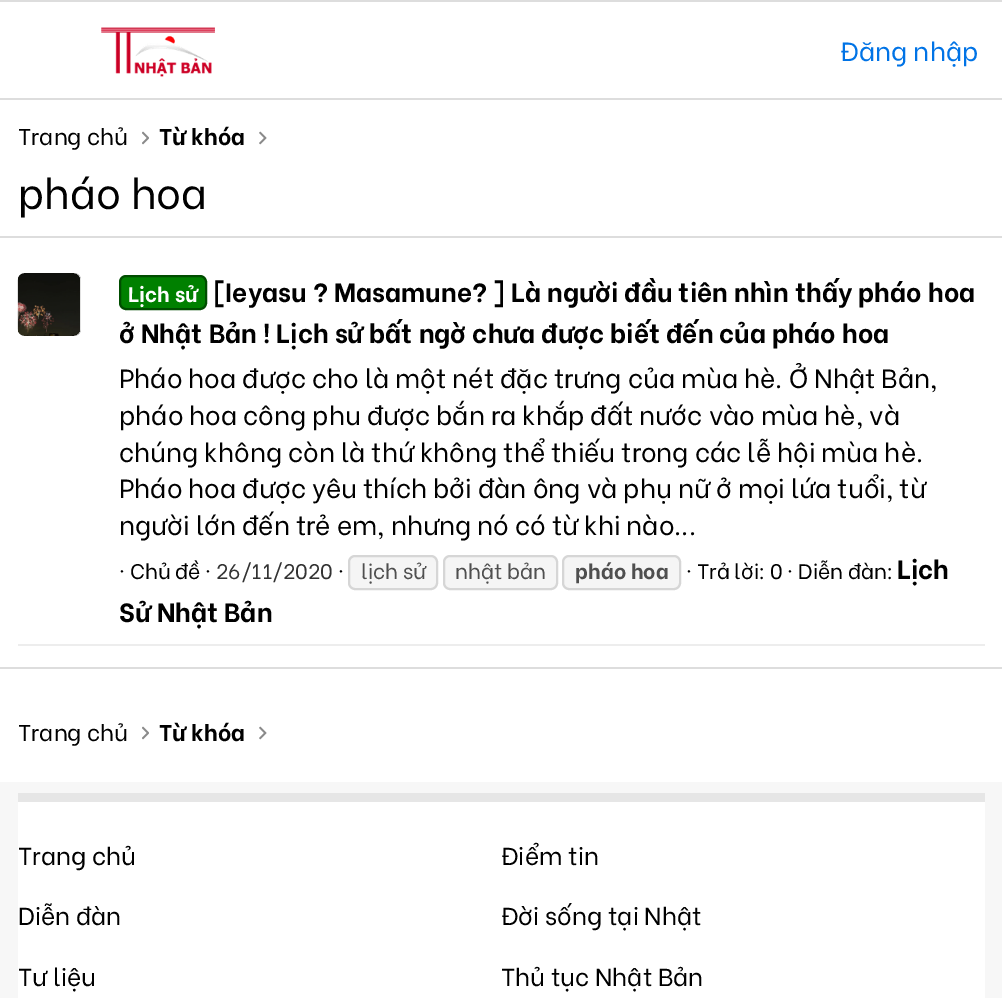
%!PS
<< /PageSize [1002 998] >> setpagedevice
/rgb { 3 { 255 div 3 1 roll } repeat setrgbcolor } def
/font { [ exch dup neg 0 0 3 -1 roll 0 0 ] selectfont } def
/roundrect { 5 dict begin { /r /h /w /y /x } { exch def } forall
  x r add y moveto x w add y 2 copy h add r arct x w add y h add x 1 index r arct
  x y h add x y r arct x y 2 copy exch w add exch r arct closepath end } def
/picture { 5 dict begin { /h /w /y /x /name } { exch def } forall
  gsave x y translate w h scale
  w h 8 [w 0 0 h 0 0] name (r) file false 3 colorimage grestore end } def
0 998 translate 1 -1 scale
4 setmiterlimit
255 255 255 rgb
0 0 1002 998 rectfill
221 221 221 rgb
0 0 1002 2 rectfill
0 98 1002 2 rectfill
(img/1.rgb) 101 27 114 50 picture
(img/2.rgb) 142 131 7 14 picture
(img/3.rgb) 259 131 8 14 picture
[
  [0 236 1002 2 221 221 221]
  [0 667 1002 2 221 221 221]
  [18 644 967 2 237 237 237]
] { aload pop rgb rectfill } forall
(img/4.rgb) 17 273 64 63 picture
0 128 0 rgb
120 276 86 33 6 roundrect gsave fill grestore
0 77 0 rgb
2 setlinewidth
stroke
245 245 245 rgb
349 556 88 33 6 roundrect gsave fill grestore
214 214 214 rgb
stroke
245 245 245 rgb
444 556 113 33 6 roundrect gsave fill grestore
214 214 214 rgb
stroke
245 245 245 rgb
563 556 117 33 6 roundrect gsave fill grestore
214 214 214 rgb
stroke
(img/2.rgb) 142 726 7 14 picture
(img/3.rgb) 259 726 8 14 picture
[
  [0 782 1002 216 247 247 247]
  [18 802 967 196 255 255 255]
  [18 793 967 9 230 230 230]
] { aload pop rgb rectfill } forall
/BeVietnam-Regular 26.25 font
0 115 230 rgb
840 61 moveto (Đăng nhập) show
/BeVietnam-Regular 22.75 font
0 0 0 rgb
18 145 moveto (Trang chủ) show
/BeVietnam-Bold 22.75 font
159 145 moveto (Từ khóa) show
/BeVietnam-Regular 42 font
18 209 moveto (pháo hoa) show
/BeVietnam-Bold 21 font
255 255 255 rgb
128 302 moveto (Lịch sử) show
/BeVietnam-Bold 26.25 font
0 0 0 rgb
213 302 moveto ([Ieyasu ? Masamune? ] Là người đầu tiên nhìn thấy pháo hoa) show
119 343 moveto (ở Nhật Bản ! Lịch sử bất ngờ chưa được biết đến của pháo hoa) show
/BeVietnam-Regular 26.25 font
[
  [(Pháo hoa được cho là một nét đặc trưng của mùa hè. Ở Nhật Bản,) 119 388]
  [(pháo hoa công phu được bắn ra khắp đất nước vào mùa hè, và) 119 425]
  [(chúng không còn là thứ không thể thiếu trong các lễ hội mùa hè.) 119 462]
  [(Pháo hoa được yêu thích bởi đàn ông và phụ nữ ở mọi lứa tuổi, từ) 119 498]
  [(người lớn đến trẻ em, nhưng nó có từ khi nào...) 119 535]
] { aload pop moveto show } forall
/BeVietnam-Regular 21 font
119 579 moveto (· Chủ đề ·) show
51 51 51 rgb
216 579 moveto (26/11/2020) show
0 0 0 rgb
338 579 moveto (·) show
79 79 79 rgb
361 579 moveto (lịch sử) show
455 579 moveto (nhật bản) show
/BeVietnam-Bold 21 font
575 579 moveto (pháo hoa) show
/BeVietnam-Regular 21 font
0 0 0 rgb
686 579 moveto (· Trả lời: 0 · Diễn đàn:) show
/BeVietnam-Bold 26.25 font
897 579 moveto (Lịch) show
119 622 moveto (Sử Nhật Bản) show
/BeVietnam-Regular 22.75 font
18 741 moveto (Trang chủ) show
/BeVietnam-Bold 22.75 font
159 741 moveto (Từ khóa) show
/BeVietnam-Regular 24.5 font
[
  [(Trang chủ) 18 865]
  [(Diễn đàn) 18 925]
  [(Tư liệu) 18 986]
  [(Điểm tin) 501 865]
  [(Đời sống tại Nhật) 501 925]
  [(Thủ tục Nhật Bản) 501 986]
] { aload pop moveto show } forall
showpage
